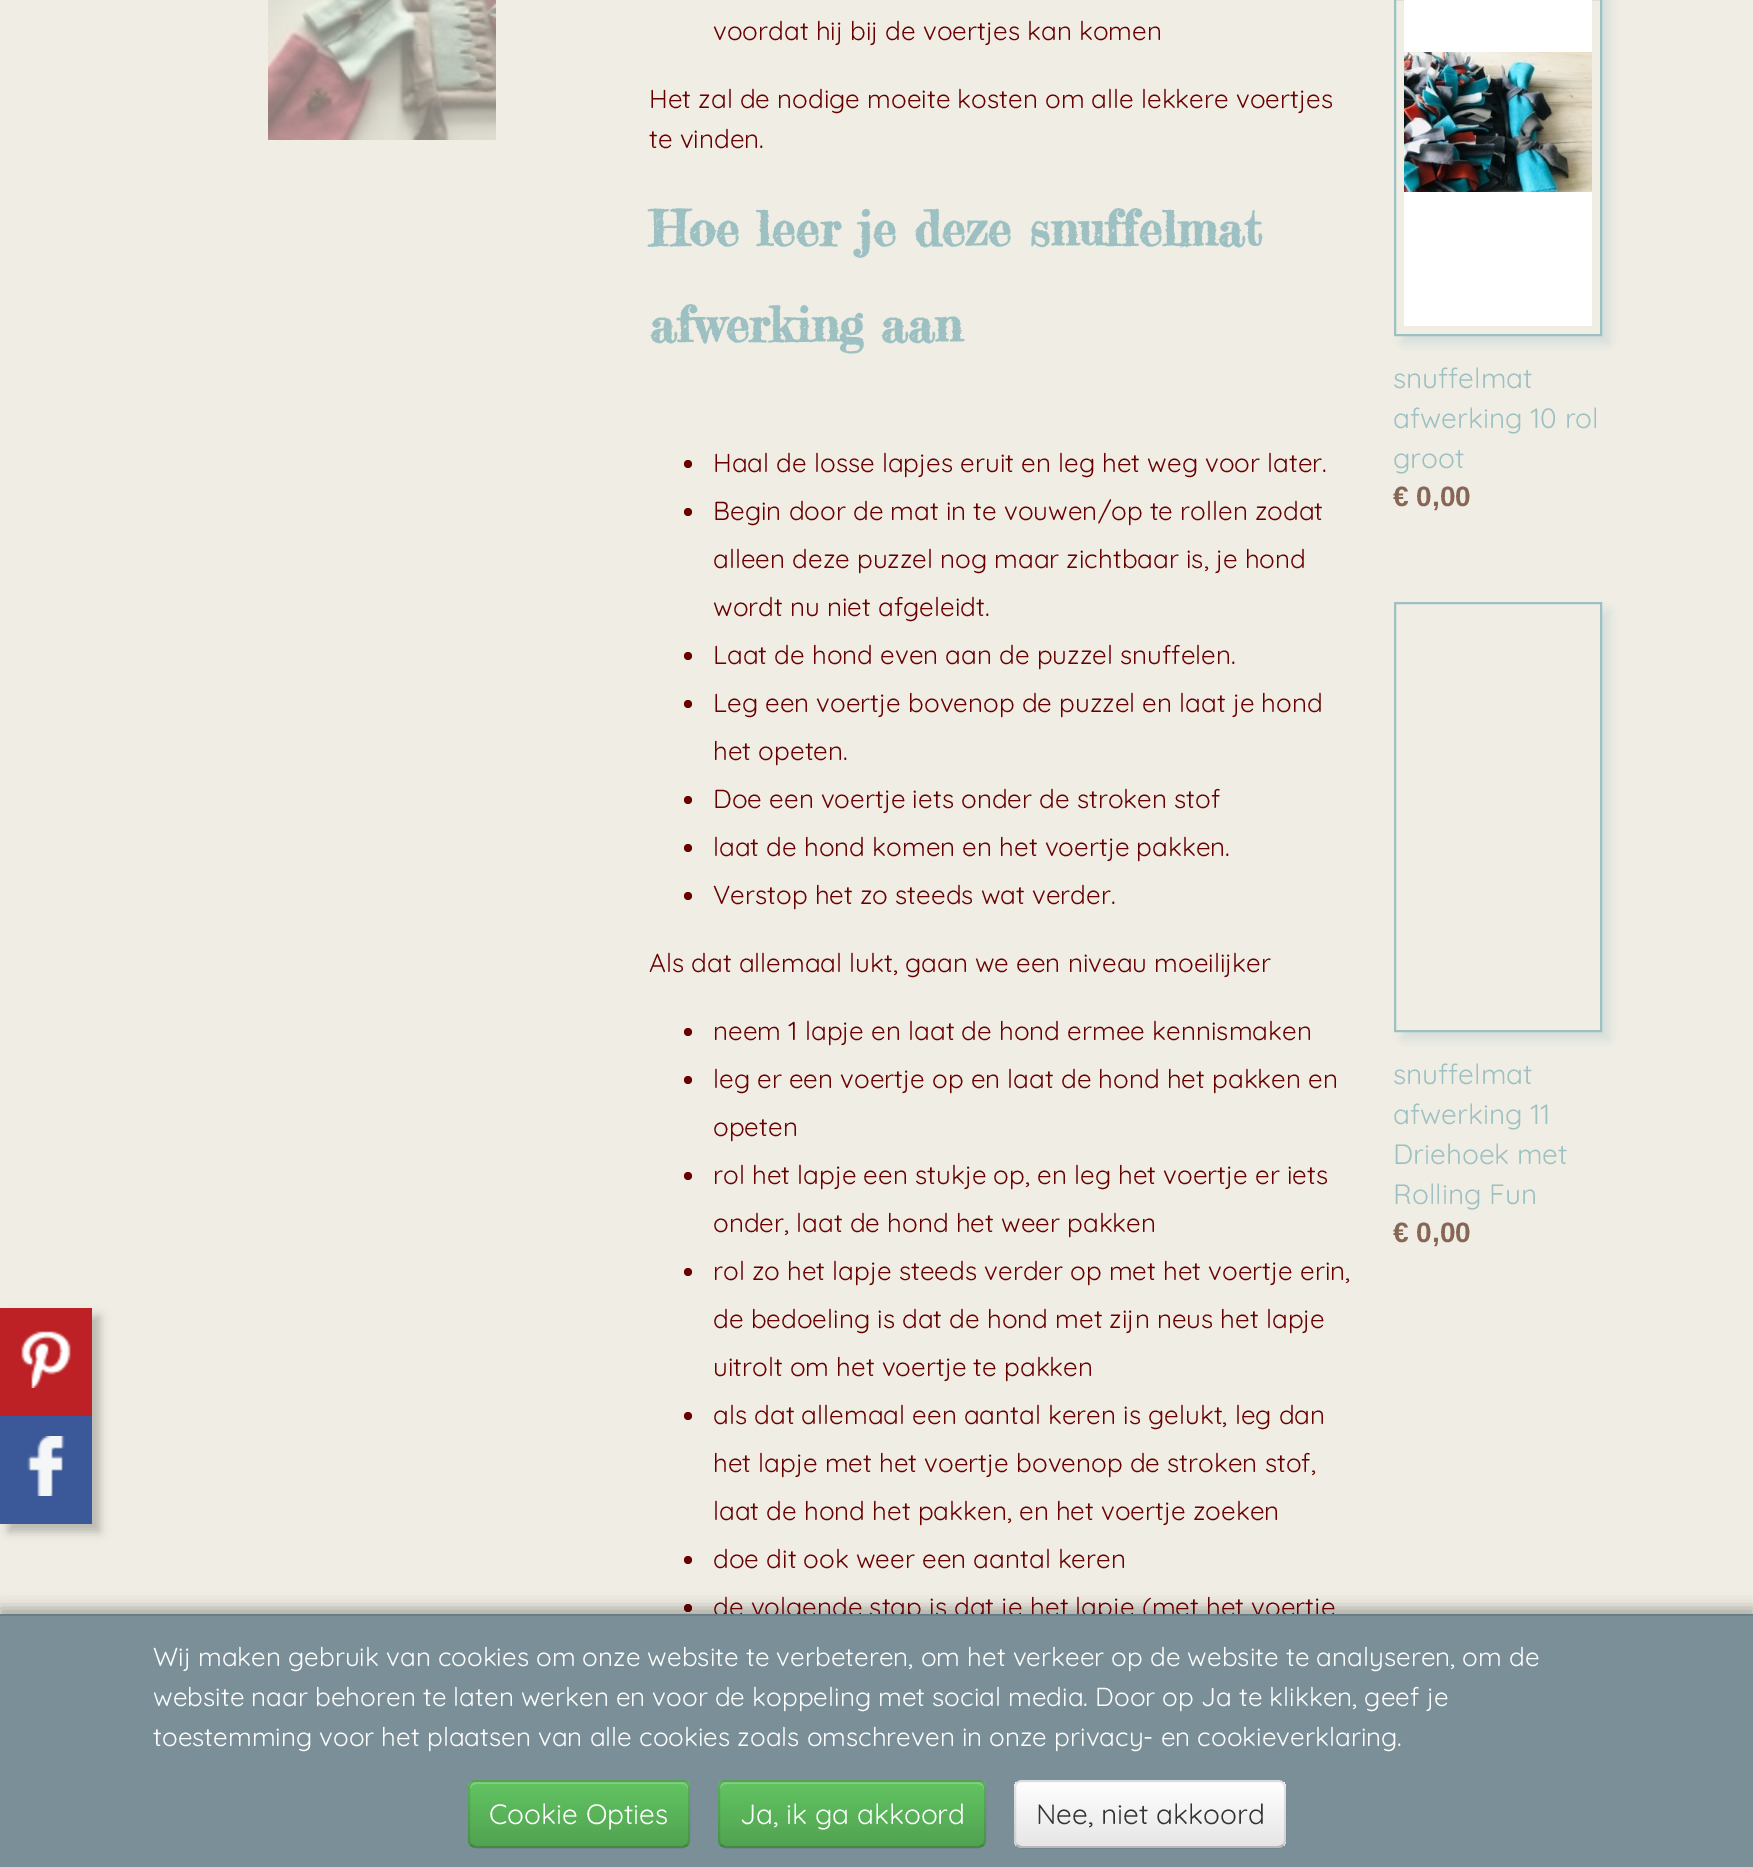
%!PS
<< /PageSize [1753 1867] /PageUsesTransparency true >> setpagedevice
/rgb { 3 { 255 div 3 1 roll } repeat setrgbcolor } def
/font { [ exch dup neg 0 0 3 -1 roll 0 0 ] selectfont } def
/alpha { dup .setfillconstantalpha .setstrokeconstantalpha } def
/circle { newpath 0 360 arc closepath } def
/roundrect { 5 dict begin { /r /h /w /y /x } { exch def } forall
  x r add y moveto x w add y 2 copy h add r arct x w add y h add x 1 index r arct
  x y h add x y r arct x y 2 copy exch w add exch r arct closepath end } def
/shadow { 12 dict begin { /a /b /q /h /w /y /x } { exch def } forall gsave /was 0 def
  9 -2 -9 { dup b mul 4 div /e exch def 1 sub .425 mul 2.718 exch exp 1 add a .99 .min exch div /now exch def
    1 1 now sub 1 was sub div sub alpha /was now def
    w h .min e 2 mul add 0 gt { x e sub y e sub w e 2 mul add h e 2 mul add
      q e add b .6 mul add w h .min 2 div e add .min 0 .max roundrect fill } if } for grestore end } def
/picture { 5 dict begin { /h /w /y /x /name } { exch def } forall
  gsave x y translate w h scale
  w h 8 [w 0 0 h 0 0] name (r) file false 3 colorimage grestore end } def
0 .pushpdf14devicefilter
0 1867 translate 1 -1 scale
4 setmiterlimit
240 237 228 rgb
0 0 1753 1867 rectfill
50 50 50 rgb
8 1316 92 216 0 5 0.3 shadow
189 33 38 rgb
0 1308 92 108 rectfill
(img/1.rgb) 21 1331 50 57 picture
59 89 152 rgb
0 1416 92 108 rectfill
(img/2.rgb) 27 1436 38 60 picture
(img/3.rgb) 268 0 228 140 picture
105 0 0 rgb
688 464 4 circle fill
688 512 4 circle fill
688 656 4 circle fill
688 704 4 circle fill
688 800 4 circle fill
688 848 4 circle fill
688 896 4 circle fill
688 1032 4 circle fill
688 1080 4 circle fill
688 1176 4 circle fill
688 1272 4 circle fill
688 1416 4 circle fill
688 1560 4 circle fill
688 1608 4 circle fill
gsave
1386 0 moveto 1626 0 lineto 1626 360 lineto 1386 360 lineto closepath 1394 -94 moveto 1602 -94 lineto 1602 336 lineto 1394 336 lineto closepath eoclip newpath
157 192 194 rgb
1402 -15 208 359 0 5 0.3 shadow
grestore
157 192 194 rgb
2 setlinewidth
1395 -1 206 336 rectstroke
255 255 255 rgb
1404 0 188 326 rectfill
(img/4.rgb) 1404 52 188 140 picture
gsave
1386 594 moveto 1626 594 lineto 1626 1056 lineto 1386 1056 lineto closepath 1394 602 moveto 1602 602 lineto 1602 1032 lineto 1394 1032 lineto closepath eoclip newpath
157 192 194 rgb
1402 610 208 430 0 5 0.3 shadow
grestore
157 192 194 rgb
1395 603 206 428 rectstroke
0 0 0 rgb
0 1608 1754 254 0 7 0.3 shadow
/Quicksand-Regular 26 font
105 0 0 rgb
[
  [(voordat hij bij de voertjes kan komen) 713 40]
  [(Het zal de nodige moeite kosten om alle lekkere voertjes) 649 108]
  [(te vinden.) 649 148]
] { aload pop moveto show } forall
/FrederickatheGreat-Bold 48 font
157 192 194 rgb
649 246 moveto (Hoe leer je deze snuffelmat) show
649 342 moveto (afwerking aan) show
/Quicksand-Regular 26 font
105 0 0 rgb
[
  [(Haal de losse lapjes eruit en leg het weg voor later.) 713 472]
  [(Begin door de mat in te vouwen/op te rollen zodat) 713 520]
  [(alleen deze puzzel nog maar zichtbaar is, je hond) 713 568]
  [(wordt nu niet afgeleidt.) 713 616]
  [(Laat de hond even aan de puzzel snuffelen.) 713 664]
  [(Leg een voertje bovenop de puzzel en laat je hond) 713 712]
  [(het opeten.) 713 760]
  [(Doe een voertje iets onder de stroken stof) 713 808]
  [(laat de hond komen en het voertje pakken.) 713 856]
  [(Verstop het zo steeds wat verder.) 713 904]
  [(Als dat allemaal lukt, gaan we een niveau moeilijker) 649 972]
  [(neem 1 lapje en laat de hond ermee kennismaken) 713 1040]
  [(leg er een voertje op en laat de hond het pakken en) 713 1088]
  [(opeten) 713 1136]
  [(rol het lapje een stukje op, en leg het voertje er iets) 713 1184]
  [(onder, laat de hond het weer pakken) 713 1232]
  [(rol zo het lapje steeds verder op met het voertje erin,) 713 1280]
  [(de bedoeling is dat de hond met zijn neus het lapje) 713 1328]
  [(uitrolt om het voertje te pakken) 713 1376]
  [(als dat allemaal een aantal keren is gelukt, leg dan) 713 1424]
  [(het lapje met het voertje bovenop de stroken stof,) 713 1472]
  [(laat de hond het pakken, en het voertje zoeken) 713 1520]
  [(doe dit ook weer een aantal keren) 713 1568]
  [(de volgende stap is dat je het lapje \(met het voertje) 713 1616]
] { aload pop moveto show } forall
/Quicksand-Regular 28 font
157 192 194 rgb
[
  [(snuffelmat) 1393 388]
  [(afwerking 10 rol) 1393 428]
  [(groot) 1393 468]
] { aload pop moveto show } forall
/LiberationSans-Bold 28 font
135 102 85 rgb
1393 506 moveto (€ 0,00) show
/Quicksand-Regular 28 font
157 192 194 rgb
[
  [(snuffelmat) 1393 1084]
  [(afwerking 11) 1393 1124]
  [(Driehoek met) 1393 1164]
  [(Rolling Fun) 1393 1204]
] { aload pop moveto show } forall
/LiberationSans-Bold 28 font
135 102 85 rgb
1393 1242 moveto (€ 0,00) show
122 143 152 rgb
0 1616 1753 251 rectfill
105 126 135 rgb
0 1614 1753 2 rectfill
/Quicksand-Regular 26 font
255 255 255 rgb
[
  [(Wij maken gebruik van cookies om onze website te verbeteren, om het verkeer op de website te analyseren, om de) 153 1666]
  [(website naar behoren te laten werken en voor de koppeling met social media. Door op Ja te klikken, geef je) 153 1706]
  [(toestemming voor het plaatsen van alle cookies zoals omschreven in onze privacy- en cookieverklaring.) 153 1746]
] { aload pop moveto show } forall
91 183 91 rgb
468 1780 222 68 8 roundrect fill
gsave
468 1780 222 68 8 roundrect clip newpath
gsave 468 1782 moveto 690 1782 lineto 690 1846 lineto 468 1846 lineto closepath clip newpath
<< /ShadingType 2 /ColorSpace /DeviceRGB /Coords [579 1782 579 1846] /Extend [true true] /Function << /FunctionType 2 /Domain [0 1] /C0 [0.384 0.769 0.384] /C1 [0.318 0.639 0.318] /N 1 >> >> shfill grestore
grestore
0.2 alpha
255 255 255 rgb
476 1784 moveto 682 1784 lineto 685 1784 688 1787 688 1790 curveto 688 1788 lineto 688 1785 685 1782 682 1782 curveto 476 1782 lineto 473 1782 470 1785 470 1788 curveto 470 1790 lineto 470 1787 473 1784 476 1784 curveto closepath fill
0.25 alpha
0 0 0 rgb
687 1845 moveto 685.5 1846.5 684 1847 682 1847 curveto 476 1847 lineto 474 1847 472.5 1846.5 471 1845 curveto stroke
0.1 alpha
471 1845 moveto 469.5 1843.5 469 1842 469 1840 curveto 469 1788 lineto 469 1786 469.5 1784.5 471 1783 curveto 472.5 1781.5 474 1781 476 1781 curveto 682 1781 lineto 684 1781 685.5 1781.5 687 1783 curveto 688.5 1784.5 689 1786 689 1788 curveto 689 1840 lineto 689 1842 688.5 1843.5 687 1845 curveto stroke
/Quicksand-Regular 28 font
1 alpha
255 255 255 rgb
489 1824 moveto (Cookie Opties) show
91 183 91 rgb
718 1780 268 68 8 roundrect fill
gsave
718 1780 268 68 8 roundrect clip newpath
gsave 718 1782 moveto 986 1782 lineto 986 1846 lineto 718 1846 lineto closepath clip newpath
<< /ShadingType 2 /ColorSpace /DeviceRGB /Coords [852 1782 852 1846] /Extend [true true] /Function << /FunctionType 2 /Domain [0 1] /C0 [0.384 0.769 0.384] /C1 [0.318 0.639 0.318] /N 1 >> >> shfill grestore
grestore
129 207 129 rgb
726 1784 moveto 978 1784 lineto 981 1784 984 1787 984 1790 curveto 984 1787 983 1783 979 1782 curveto 725 1782 lineto 721 1783 720 1787 720 1790 curveto 720 1787 723 1784 726 1784 curveto closepath fill
0.25 alpha
0 0 0 rgb
983 1845 moveto 981.5 1846.5 980 1847 978 1847 curveto 726 1847 lineto 724 1847 722.5 1846.5 721 1845 curveto stroke
0.1 alpha
721 1845 moveto 719.5 1843.5 719 1842 719 1840 curveto 719 1788 lineto 719 1786 719.5 1784.5 721 1783 curveto 722.5 1781.5 724 1781 726 1781 curveto 978 1781 lineto 980 1781 981.5 1781.5 983 1783 curveto 984.5 1784.5 985 1786 985 1788 curveto 985 1840 lineto 985 1842 984.5 1843.5 983 1845 curveto stroke
1 alpha
255 255 255 rgb
740 1824 moveto (Ja, ik ga akkoord) show
245 245 245 rgb
1014 1780 272 68 8 roundrect fill
gsave
1014 1780 272 68 8 roundrect clip newpath
gsave 1014 1782 moveto 1286 1782 lineto 1286 1846 lineto 1014 1846 lineto closepath clip newpath
<< /ShadingType 2 /ColorSpace /DeviceRGB /Coords [1150 1782 1150 1846] /Extend [true true] /Function << /FunctionType 2 /Domain [0 1] /C0 [1 1 1] /C1 [0.902 0.902 0.902] /N 1 >> >> shfill grestore
grestore
0.25 alpha
0 0 0 rgb
1283 1845 moveto 1281.5 1846.5 1280 1847 1278 1847 curveto 1022 1847 lineto 1020 1847 1018.5 1846.5 1017 1845 curveto stroke
0.1 alpha
1017 1845 moveto 1015.5 1843.5 1015 1842 1015 1840 curveto 1015 1788 lineto 1015 1786 1015.5 1784.5 1017 1783 curveto 1018.5 1781.5 1020 1781 1022 1781 curveto 1278 1781 lineto 1280 1781 1281.5 1781.5 1283 1783 curveto 1284.5 1784.5 1285 1786 1285 1788 curveto 1285 1840 lineto 1285 1842 1284.5 1843.5 1283 1845 curveto stroke
1 alpha
51 51 51 rgb
1036 1824 moveto (Nee, niet akkoord) show
.poppdf14devicefilter showpage
